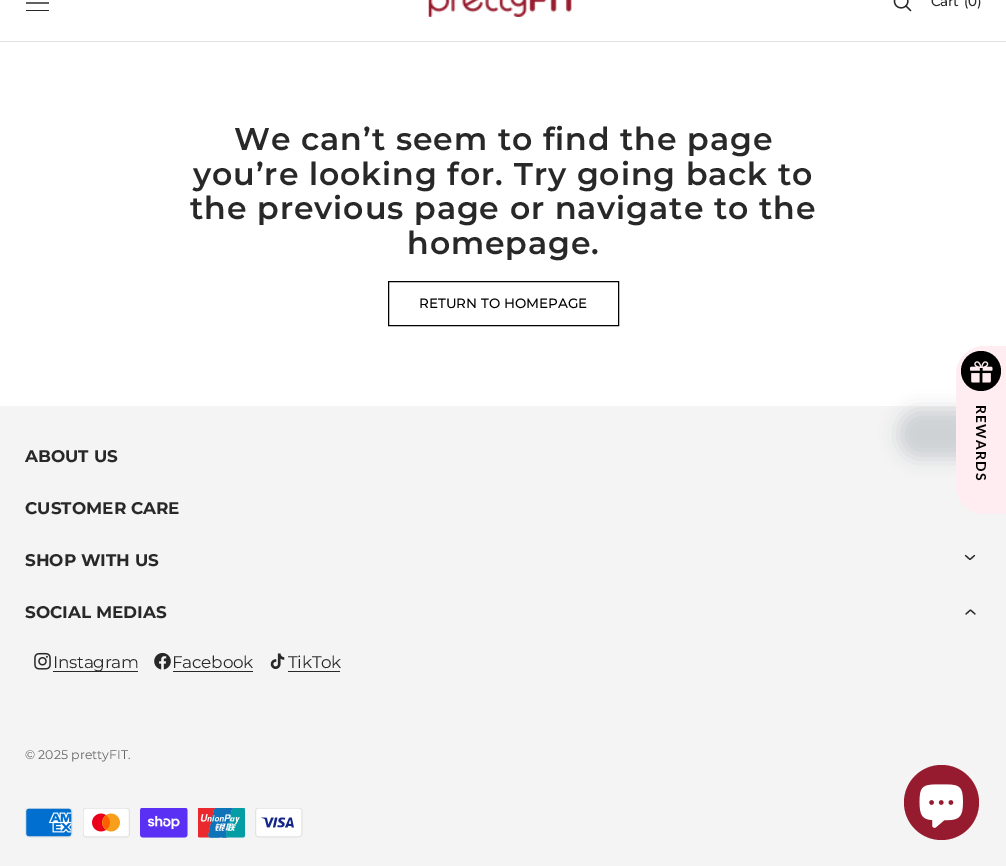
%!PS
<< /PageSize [1006 866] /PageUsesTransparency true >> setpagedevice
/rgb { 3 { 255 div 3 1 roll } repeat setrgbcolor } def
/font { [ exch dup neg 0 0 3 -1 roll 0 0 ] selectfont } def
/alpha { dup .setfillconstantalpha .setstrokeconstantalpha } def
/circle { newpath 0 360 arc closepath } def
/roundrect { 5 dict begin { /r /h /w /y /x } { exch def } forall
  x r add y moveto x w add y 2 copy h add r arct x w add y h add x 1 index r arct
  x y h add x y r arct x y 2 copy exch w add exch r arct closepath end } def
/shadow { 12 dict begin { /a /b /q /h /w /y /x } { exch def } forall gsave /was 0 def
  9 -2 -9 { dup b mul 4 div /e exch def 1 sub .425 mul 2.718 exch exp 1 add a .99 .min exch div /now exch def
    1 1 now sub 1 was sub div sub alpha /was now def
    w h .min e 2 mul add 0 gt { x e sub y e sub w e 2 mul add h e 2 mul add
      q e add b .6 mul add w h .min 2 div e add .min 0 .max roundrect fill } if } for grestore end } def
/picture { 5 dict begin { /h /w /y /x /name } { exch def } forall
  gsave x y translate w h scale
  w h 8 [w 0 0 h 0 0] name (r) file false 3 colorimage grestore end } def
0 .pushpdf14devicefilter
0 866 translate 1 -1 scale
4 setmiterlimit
255 255 255 rgb
0 0 1006 866 rectfill
40 40 40 rgb
1.2 setlinewidth
26 3 moveto 49 3 lineto stroke
26 10 23 1 rectfill
(img/1.rgb) 428 0 144 17 picture
(img/2.rgb) 893 0 19 12 picture
225 225 225 rgb
0 41 1006 1 rectfill
0 0 0 rgb
1 setlinewidth
388.5 281.5 230 44 rectstroke
244 244 244 rgb
0 406 1006 460 rectfill
40 40 40 rgb
1.2 setlinewidth
1 setlinecap
1 setlinejoin
974.5 555.5 moveto 970 559.5 lineto 965.5 555.5 lineto stroke
966 614 moveto 970.5 610 lineto 975 614 lineto stroke
(img/3.rgb) 34 652 17 18 picture
53 671 85 1 rectfill
(img/4.rgb) 154 652 17 18 picture
173 671 80 1 rectfill
(img/5.rgb) 270 653 15 17 picture
288 671 52 1 rectfill
(img/6.rgb) 25 808 48 30 picture
(img/7.rgb) 83 808 47 30 picture
(img/8.rgb) 140 808 48 30 picture
(img/9.rgb) 198 808 47 30 picture
(img/10.rgb) 255 808 48 30 picture
17 34 51 rgb
898 409 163 50 28 9 0.16 shadow
255 237 241 rgb
1006 346 moveto 1006 514 lineto 984 514 lineto 969 514 956 502 956 486 curveto 956 374 lineto 956 359 969 346 984 346 curveto closepath fill
0 0 0 rgb
981 371 20 circle fill
(img/11.rgb) 970 361 23 22 picture
151 27 47 rgb
941.5 802.5 37.5 circle fill
(img/12.rgb) 919 784 44 44 picture
/Montserrat-Medium 13.5 font
40 40 40 rgb
931 6 moveto -0.5 0 (Cart) ashow
964 6 moveto -0.5 0 (\(0\)) ashow
/Montserrat-SemiBold 31.5 font
234 150 moveto 0.95 0 (We can’t seem to find the page) ashow
193 185 moveto 0.95 0 (you’re looking for. Try going back to) ashow
190 219 moveto 0.95 0 (the previous page or navigate to the) ashow
407 254 moveto 0.95 0 (homepage.) ashow
/Montserrat-Medium 13.5 font
0 0 0 rgb
419 308 moveto (RETURN TO HOMEPAGE) show
/Montserrat-Bold 16.9 font
40 40 40 rgb
[
  [(ABOUT US) 25 462]
  [(CUSTOMER CARE) 25 514]
  [(SHOP WITH US) 25 566]
  [(SOCIAL MEDIAS) 25 618]
] { aload pop moveto show } forall
/Montserrat-Regular 16.9 font
53 668 moveto -0.25 0 (Instagram) ashow
172 668 moveto -0.25 0 (Facebook) ashow
288 668 moveto -0.25 0 (TikTok) ashow
/Montserrat-Regular 12.5 font
101 101 101 rgb
25 759 moveto (© 2025 prettyFIT.) show
/Lato-Bold 13.75 font
0 0 0 rgb
gsave 976 405 translate 90 rotate 0 0 moveto 1.25 0 (REWARDS) ashow grestore
.poppdf14devicefilter showpage
